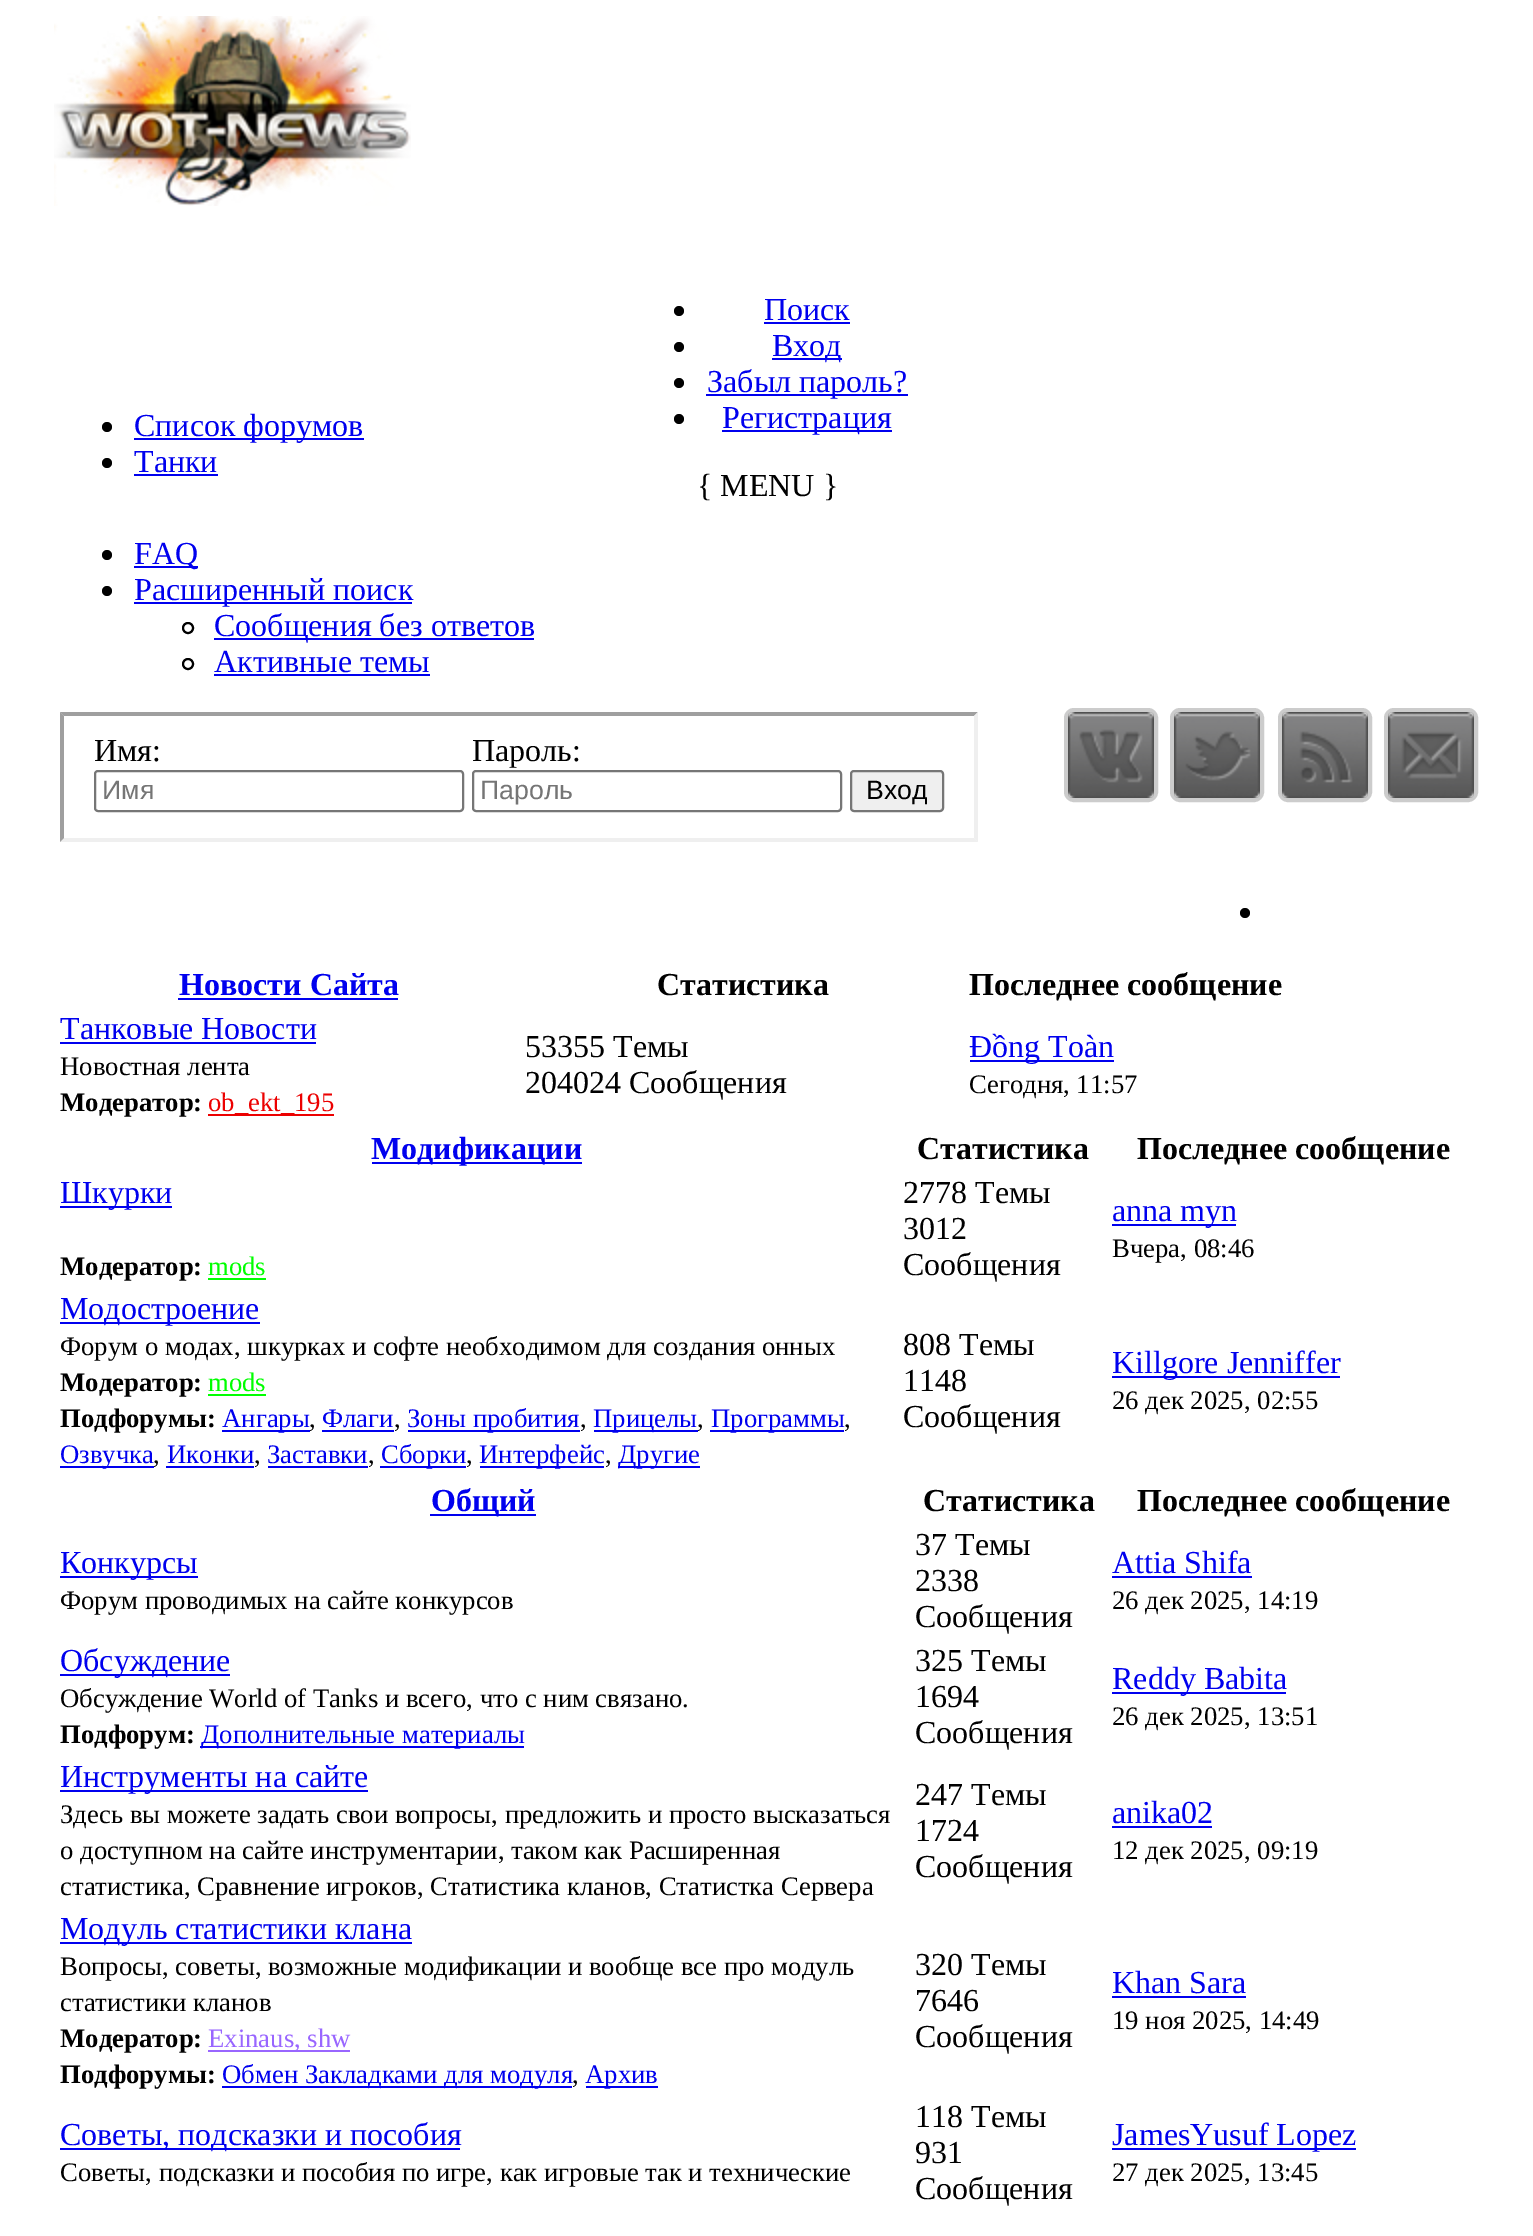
%!PS
<< /PageSize [1533 2236] >> setpagedevice
/rgb { 3 { 255 div 3 1 roll } repeat setrgbcolor } def
/font { [ exch dup neg 0 0 3 -1 roll 0 0 ] selectfont } def
/circle { newpath 0 360 arc closepath } def
/roundrect { 5 dict begin { /r /h /w /y /x } { exch def } forall
  x r add y moveto x w add y 2 copy h add r arct x w add y h add x 1 index r arct
  x y h add x y r arct x y 2 copy exch w add exch r arct closepath end } def
/picture { 5 dict begin { /h /w /y /x /name } { exch def } forall
  gsave x y translate w h scale
  w h 8 [w 0 0 h 0 0] name (r) file false 3 colorimage grestore end } def
0 2236 translate 1 -1 scale
4 setmiterlimit
255 255 255 rgb
0 0 1533 2236 rectfill
(img/1.rgb) 54 16 357 190 picture
0 0 0 rgb
679 311 5 circle fill
0 0 238 rgb
764 322 86 2 rectfill
0 0 0 rgb
679 347 5 circle fill
0 0 238 rgb
772 358 70 2 rectfill
0 0 0 rgb
679 383 5 circle fill
0 0 238 rgb
706 394 202 2 rectfill
0 0 0 rgb
679 419 5 circle fill
0 0 238 rgb
722 430 170 2 rectfill
0 0 0 rgb
107 555 5 circle fill
0 0 238 rgb
134 566 64 2 rectfill
0 0 0 rgb
107 591 5 circle fill
0 0 238 rgb
134 602 278 2 rectfill
0 0 0 rgb
2 setlinewidth
188 628 5 circle stroke
0 0 238 rgb
214 638 320 2 rectfill
0 0 0 rgb
188 664 5 circle stroke
0 0 238 rgb
214 674 216 2 rectfill
204 204 204 rgb
4 setlinewidth
1066 710 90 90 8 roundrect stroke
(img/2.rgb) 1068 712 86 86 picture
1172 710 90 90 8 roundrect stroke
(img/3.rgb) 1174 712 86 86 picture
1280 710 90 90 8 roundrect stroke
(img/4.rgb) 1282 712 86 86 picture
1386 710 90 90 8 roundrect stroke
(img/5.rgb) 1388 712 86 86 picture
0 0 0 rgb
107 427 5 circle fill
0 0 238 rgb
134 438 230 2 rectfill
0 0 0 rgb
107 463 5 circle fill
0 0 238 rgb
134 474 84 2 rectfill
159 159 159 rgb
60 712 moveto 978 712 lineto 974 716 lineto 64 716 lineto closepath fill
239 239 239 rgb
978 712 moveto 978 842 lineto 974 838 lineto 974 716 lineto closepath fill
978 842 moveto 60 842 lineto 64 838 lineto 974 838 lineto closepath fill
159 159 159 rgb
60 842 moveto 60 712 lineto 64 716 lineto 64 838 lineto closepath fill
118 118 118 rgb
2 setlinewidth
95 771 368 40 3 roundrect stroke
473 771 368 40 3 roundrect stroke
239 239 239 rgb
851 771 92 40 3 roundrect gsave fill grestore
118 118 118 rgb
stroke
0 0 0 rgb
1245 913 5 circle fill
[
  [178 998 220 2 0 0 238]
  [60 1042 256 2 0 0 238]
  [208 1114 126 2 236 0 0]
  [970 1060 144 2 0 0 238]
  [372 1162 210 2 0 0 238]
  [60 1206 112 2 0 0 238]
  [208 1278 58 2 0 255 0]
  [1112 1224 124 2 0 0 238]
  [60 1322 200 2 0 0 238]
  [208 1394 58 2 0 255 0]
  [222 1430 88 2 0 0 238]
  [322 1430 72 2 0 0 238]
  [408 1430 172 2 0 0 238]
  [594 1430 104 2 0 0 238]
  [710 1430 134 2 0 0 238]
  [60 1466 94 2 0 0 238]
  [166 1466 88 2 0 0 238]
  [268 1466 100 2 0 0 238]
  [380 1466 86 2 0 0 238]
  [480 1466 124 2 0 0 238]
  [618 1466 82 2 0 0 238]
  [1112 1376 228 2 0 0 238]
  [430 1514 106 2 0 0 238]
  [60 1576 138 2 0 0 238]
  [1112 1576 140 2 0 0 238]
  [60 1674 170 2 0 0 238]
  [200 1746 324 2 0 0 238]
  [1112 1692 174 2 0 0 238]
  [60 1790 308 2 0 0 238]
  [1112 1826 100 2 0 0 238]
  [60 1942 352 2 0 0 238]
  [208 2050 142 2 153 102 255]
  [222 2086 350 2 0 0 238]
  [586 2086 72 2 0 0 238]
  [1112 1996 134 2 0 0 238]
  [60 2148 400 2 0 0 238]
  [1112 2148 244 2 0 0 238]
] { aload pop rgb rectfill } forall
/LiberationSerif-Regular 32 font
[
  [(Поиск) 764 320]
  [(Вход) 772 356]
  [(Забыл пароль?) 707 392]
  [(Регистрация) 722 428]
] { aload pop moveto show } forall
0 0 0 rgb
697 496 moveto ({ MENU }) show
0 0 238 rgb
[
  [(FAQ) 134 564]
  [(Расширенный поиск) 134 600]
  [(Сообщения без ответов) 214 636]
  [(Активные темы) 214 672]
  [(Список форумов) 134 436]
  [(Танки) 134 472]
] { aload pop moveto show } forall
0 0 0 rgb
94 761 moveto (Имя:) show
/LiberationSans-Regular 26.7 font
117 117 117 rgb
102 799 moveto (Имя) show
/LiberationSerif-Regular 32 font
0 0 0 rgb
472 761 moveto (Пароль:) show
/LiberationSans-Regular 26.7 font
117 117 117 rgb
480 799 moveto (Пароль) show
0 0 0 rgb
866 799 moveto (Вход) show
/LiberationSerif-Bold 32 font
0 0 238 rgb
179 995 moveto (Новости Сайта) show
0 0 0 rgb
657 995 moveto (Статистика) show
969 995 moveto (Последнее сообщение) show
/LiberationSerif-Regular 32 font
0 0 238 rgb
60 1039 moveto (Танковые Новости) show
/LiberationSerif-Regular 26.7 font
0 0 0 rgb
60 1075 moveto (Новостная лента) show
/LiberationSerif-Bold 26.7 font
60 1111 moveto (Модератор:) show
/LiberationSerif-Regular 26.7 font
236 0 0 rgb
208 1111 moveto (ob_ekt_195) show
/LiberationSerif-Regular 32 font
0 0 0 rgb
525 1057 moveto (53355 Темы) show
525 1093 moveto (204024 Сообщения) show
0 0 238 rgb
969 1057 moveto (Đồng Toàn) show
/LiberationSerif-Regular 26.7 font
0 0 0 rgb
969 1093 moveto (Сегодня, 11:57) show
/LiberationSerif-Bold 32 font
0 0 238 rgb
371 1159 moveto (Модификации) show
0 0 0 rgb
917 1159 moveto (Статистика) show
1137 1159 moveto (Последнее сообщение) show
/LiberationSerif-Regular 32 font
0 0 238 rgb
60 1203 moveto (Шкурки) show
/LiberationSerif-Bold 26.7 font
0 0 0 rgb
60 1275 moveto (Модератор:) show
/LiberationSerif-Regular 26.7 font
0 255 0 rgb
208 1275 moveto (mods) show
/LiberationSerif-Regular 32 font
0 0 0 rgb
[
  [(2778 Темы) 903 1203]
  [(3012) 903 1239]
  [(Сообщения) 903 1275]
] { aload pop moveto show } forall
0 0 238 rgb
1112 1221 moveto (anna myn) show
/LiberationSerif-Regular 26.7 font
0 0 0 rgb
1112 1257 moveto (Вчера, 08:46) show
/LiberationSerif-Regular 32 font
0 0 238 rgb
60 1319 moveto (Модостроение) show
/LiberationSerif-Regular 26.7 font
0 0 0 rgb
60 1355 moveto (Форум о модах, шкурках и софте необходимом для создания онных) show
/LiberationSerif-Bold 26.7 font
60 1391 moveto (Модератор:) show
/LiberationSerif-Regular 26.7 font
0 255 0 rgb
208 1391 moveto (mods) show
/LiberationSerif-Bold 26.7 font
0 0 0 rgb
60 1427 moveto (Подфорумы:) show
/LiberationSerif-Regular 26.7 font
0 0 238 rgb
222 1427 moveto (Ангары) show
0 0 0 rgb
309 1427 moveto (,) show
0 0 238 rgb
322 1427 moveto (Флаги) show
0 0 0 rgb
394 1427 moveto (,) show
0 0 238 rgb
407 1427 moveto (Зоны пробития) show
0 0 0 rgb
580 1427 moveto (,) show
0 0 238 rgb
593 1427 moveto (Прицелы) show
0 0 0 rgb
697 1427 moveto (,) show
0 0 238 rgb
711 1427 moveto (Программы) show
0 0 0 rgb
844 1427 moveto (,) show
0 0 238 rgb
60 1463 moveto (Озвучка) show
0 0 0 rgb
153 1463 moveto (,) show
0 0 238 rgb
167 1463 moveto (Иконки) show
0 0 0 rgb
254 1463 moveto (,) show
0 0 238 rgb
267 1463 moveto (Заставки) show
0 0 0 rgb
368 1463 moveto (,) show
0 0 238 rgb
381 1463 moveto (Сборки) show
0 0 0 rgb
466 1463 moveto (,) show
0 0 238 rgb
479 1463 moveto (Интерфейс) show
0 0 0 rgb
605 1463 moveto (,) show
0 0 238 rgb
618 1463 moveto (Другие) show
/LiberationSerif-Regular 32 font
0 0 0 rgb
[
  [(808 Темы) 903 1355]
  [(1148) 903 1391]
  [(Сообщения) 903 1427]
] { aload pop moveto show } forall
0 0 238 rgb
1112 1373 moveto (Killgore Jenniffer) show
/LiberationSerif-Regular 26.7 font
0 0 0 rgb
1112 1409 moveto (26 дек 2025, 02:55) show
/LiberationSerif-Bold 32 font
0 0 238 rgb
431 1511 moveto (Общий) show
0 0 0 rgb
923 1511 moveto (Статистика) show
1137 1511 moveto (Последнее сообщение) show
/LiberationSerif-Regular 32 font
0 0 238 rgb
60 1573 moveto (Конкурсы) show
/LiberationSerif-Regular 26.7 font
0 0 0 rgb
60 1609 moveto (Форум проводимых на сайте конкурсов) show
/LiberationSerif-Regular 32 font
[
  [(37 Темы) 915 1555]
  [(2338) 915 1591]
  [(Сообщения) 915 1627]
] { aload pop moveto show } forall
0 0 238 rgb
1112 1573 moveto (Attia Shifa) show
/LiberationSerif-Regular 26.7 font
0 0 0 rgb
1112 1609 moveto (26 дек 2025, 14:19) show
/LiberationSerif-Regular 32 font
0 0 238 rgb
60 1671 moveto (Обсуждение) show
/LiberationSerif-Regular 26.7 font
0 0 0 rgb
60 1707 moveto (Обсуждение World of Tanks и всего, что с ним связано.) show
/LiberationSerif-Bold 26.7 font
60 1743 moveto (Подфорум:) show
/LiberationSerif-Regular 26.7 font
0 0 238 rgb
201 1743 moveto (Дополнительные материалы) show
/LiberationSerif-Regular 32 font
0 0 0 rgb
[
  [(325 Темы) 915 1671]
  [(1694) 915 1707]
  [(Сообщения) 915 1743]
] { aload pop moveto show } forall
0 0 238 rgb
1112 1689 moveto (Reddy Babita) show
/LiberationSerif-Regular 26.7 font
0 0 0 rgb
1112 1725 moveto (26 дек 2025, 13:51) show
/LiberationSerif-Regular 32 font
0 0 238 rgb
60 1787 moveto (Инструменты на сайте) show
/LiberationSerif-Regular 26.7 font
0 0 0 rgb
[
  [(Здесь вы можете задать свои вопросы, предложить и просто высказаться) 60 1823]
  [(о доступном на сайте инструментарии, таком как Расширенная) 60 1859]
  [(статистика, Сравнение игроков, Статистика кланов, Статистка Сервера) 60 1895]
] { aload pop moveto show } forall
/LiberationSerif-Regular 32 font
[
  [(247 Темы) 915 1805]
  [(1724) 915 1841]
  [(Сообщения) 915 1877]
] { aload pop moveto show } forall
0 0 238 rgb
1112 1823 moveto (anika02) show
/LiberationSerif-Regular 26.7 font
0 0 0 rgb
1112 1859 moveto (12 дек 2025, 09:19) show
/LiberationSerif-Regular 32 font
0 0 238 rgb
60 1939 moveto (Модуль статистики клана) show
/LiberationSerif-Regular 26.7 font
0 0 0 rgb
60 1975 moveto (Вопросы, советы, возможные модификации и вообще все про модуль) show
60 2011 moveto (статистики кланов) show
/LiberationSerif-Bold 26.7 font
60 2047 moveto (Модератор:) show
/LiberationSerif-Regular 26.7 font
153 102 255 rgb
208 2047 moveto (Exinaus, shw) show
/LiberationSerif-Bold 26.7 font
0 0 0 rgb
60 2083 moveto (Подфорумы:) show
/LiberationSerif-Regular 26.7 font
0 0 238 rgb
222 2083 moveto (Обмен Закладками для модуля) show
0 0 0 rgb
572 2083 moveto (,) show
0 0 238 rgb
585 2083 moveto (Архив) show
/LiberationSerif-Regular 32 font
0 0 0 rgb
[
  [(320 Темы) 915 1975]
  [(7646) 915 2011]
  [(Сообщения) 915 2047]
] { aload pop moveto show } forall
0 0 238 rgb
1112 1993 moveto (Khan Sara) show
/LiberationSerif-Regular 26.7 font
0 0 0 rgb
1112 2029 moveto (19 ноя 2025, 14:49) show
/LiberationSerif-Regular 32 font
0 0 238 rgb
60 2145 moveto (Советы, подсказки и пособия) show
/LiberationSerif-Regular 26.7 font
0 0 0 rgb
60 2181 moveto (Советы, подсказки и пособия по игре, как игровые так и технические) show
/LiberationSerif-Regular 32 font
[
  [(118 Темы) 915 2127]
  [(931) 915 2163]
  [(Сообщения) 915 2199]
] { aload pop moveto show } forall
0 0 238 rgb
1112 2145 moveto (JamesYusuf Lopez) show
/LiberationSerif-Regular 26.7 font
0 0 0 rgb
1112 2181 moveto (27 дек 2025, 13:45) show
showpage
